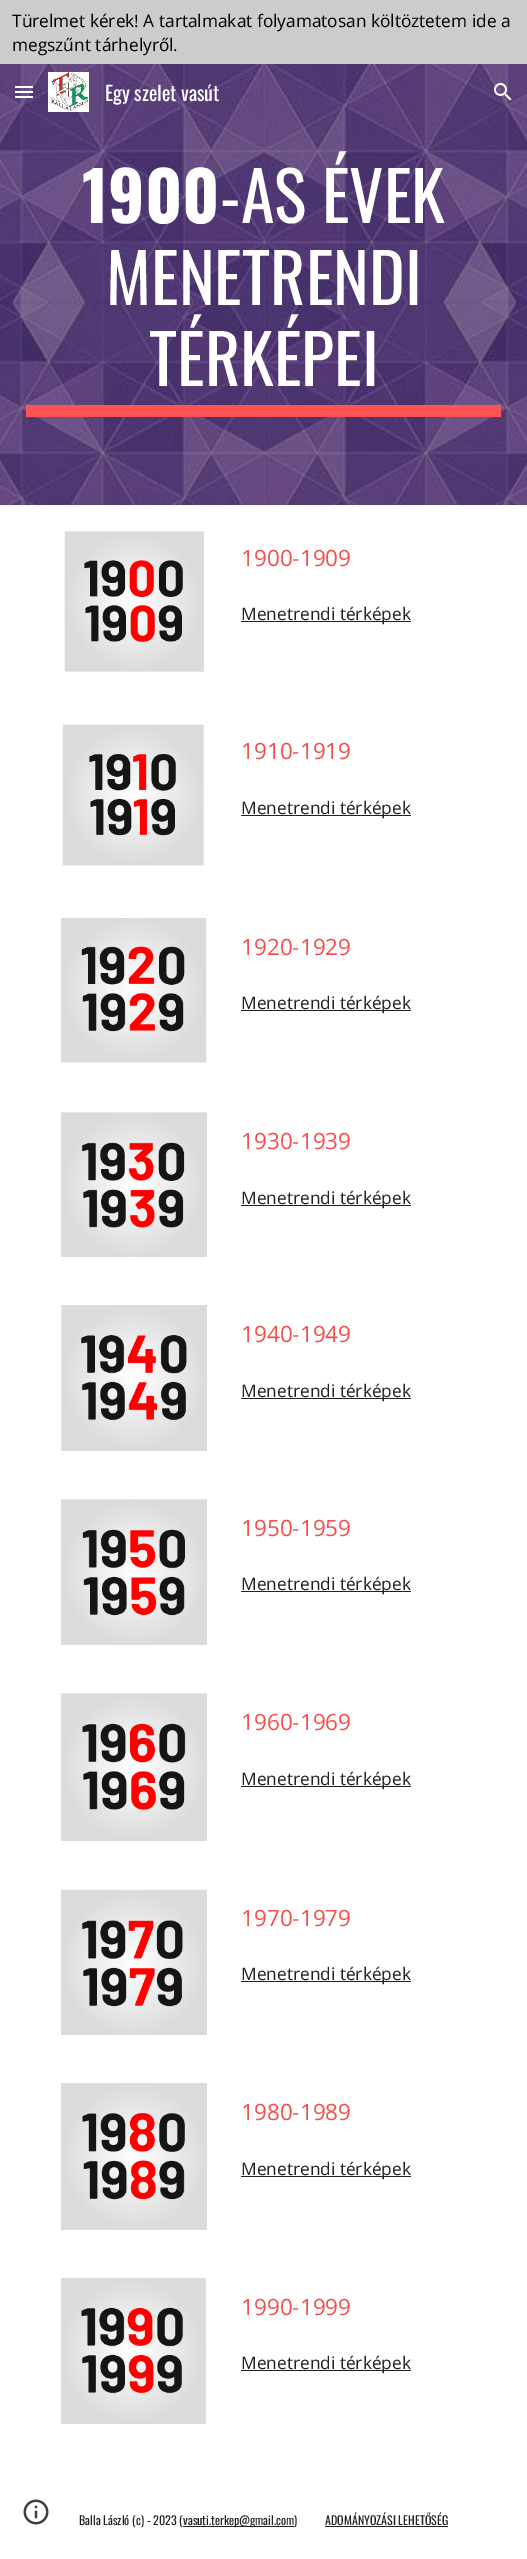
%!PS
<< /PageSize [527 2559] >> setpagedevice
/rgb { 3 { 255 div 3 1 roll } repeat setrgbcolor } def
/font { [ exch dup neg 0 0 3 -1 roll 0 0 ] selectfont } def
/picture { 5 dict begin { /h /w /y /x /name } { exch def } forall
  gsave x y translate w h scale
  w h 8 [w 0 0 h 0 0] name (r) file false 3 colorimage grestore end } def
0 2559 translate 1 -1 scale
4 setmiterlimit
255 255 255 rgb
0 0 527 2559 rectfill
204 204 204 rgb
0 0 527 64 rectfill
(img/3.rgb) 0 64 527 441 picture
[
  [15 86 18 2 255 255 255]
  [15 91 18 2 255 255 255]
  [15 96 18 2 255 255 255]
] { aload pop rgb rectfill } forall
(img/1.rgb) 48 72 41 40 picture
(img/2.rgb) 494 83 18 18 picture
255 82 82 rgb
26 405 475 12 rectfill
(img/4.rgb) 64 531 140 141 picture
33 33 33 rgb
241 621 170 1 rectfill
(img/5.rgb) 62 724 142 142 picture
241 815 170 1 rectfill
(img/6.rgb) 61 918 146 145 picture
241 1010 170 1 rectfill
(img/7.rgb) 61 1112 146 145 picture
241 1205 170 1 rectfill
(img/8.rgb) 61 1305 146 146 picture
241 1398 170 1 rectfill
(img/9.rgb) 61 1499 146 146 picture
241 1591 170 1 rectfill
(img/10.rgb) 61 1693 146 148 picture
241 1786 170 1 rectfill
(img/11.rgb) 61 1889 146 146 picture
241 1981 170 1 rectfill
(img/12.rgb) 61 2083 146 147 picture
241 2176 170 1 rectfill
(img/13.rgb) 61 2278 145 146 picture
241 2370 170 1 rectfill
(img/14.rgb) 23 2499 26 26 picture
183 2526 111 1 rectfill
325 2526 123 1 rectfill
/OpenSans-Regular 17.3 font
0 0 0 rgb
12 27 moveto (Türelmet kérek! A tartalmakat folyamatosan költöztetem ide a) show
12 51 moveto (megszűnt tárhelyről.) show
/Oswald-Regular 20 font
255 255 255 rgb
105 101 moveto (Egy szelet vasút) show
/Oswald-Bold 68 font
82 223 moveto (1900) show
/Oswald-Regular 68 font
[
  [(-AS ÉVEK) 220 223]
  [(MENETRENDI) 106 305]
  [(TÉRKÉPEI) 149 386]
] { aload pop moveto show } forall
/OpenSans-Regular 22.5 font
243 79 76 rgb
241 566 moveto (1900-1909) show
/OpenSans-Regular 17.3 font
33 33 33 rgb
241 620 moveto (Menetrendi térképek) show
/OpenSans-Regular 22.5 font
243 79 76 rgb
241 759 moveto (1910-1919) show
/OpenSans-Regular 17.3 font
33 33 33 rgb
241 814 moveto (Menetrendi térképek) show
/OpenSans-Regular 22.5 font
243 79 76 rgb
241 955 moveto (1920-1929) show
/OpenSans-Regular 17.3 font
33 33 33 rgb
241 1009 moveto (Menetrendi térképek) show
/OpenSans-Regular 22.5 font
243 79 76 rgb
241 1149 moveto (1930-1939) show
/OpenSans-Regular 17.3 font
33 33 33 rgb
241 1204 moveto (Menetrendi térképek) show
/OpenSans-Regular 22.5 font
243 79 76 rgb
241 1342 moveto (1940-1949) show
/OpenSans-Regular 17.3 font
33 33 33 rgb
241 1397 moveto (Menetrendi térképek) show
/OpenSans-Regular 22.5 font
243 79 76 rgb
241 1536 moveto (1950-1959) show
/OpenSans-Regular 17.3 font
33 33 33 rgb
241 1590 moveto (Menetrendi térképek) show
/OpenSans-Regular 22.5 font
243 79 76 rgb
241 1730 moveto (1960-1969) show
/OpenSans-Regular 17.3 font
33 33 33 rgb
241 1785 moveto (Menetrendi térképek) show
/OpenSans-Regular 22.5 font
243 79 76 rgb
241 1926 moveto (1970-1979) show
/OpenSans-Regular 17.3 font
33 33 33 rgb
241 1980 moveto (Menetrendi térképek) show
/OpenSans-Regular 22.5 font
243 79 76 rgb
241 2120 moveto (1980-1989) show
/OpenSans-Regular 17.3 font
33 33 33 rgb
241 2175 moveto (Menetrendi térképek) show
/OpenSans-Regular 22.5 font
243 79 76 rgb
241 2315 moveto (1990-1999) show
/OpenSans-Regular 17.3 font
33 33 33 rgb
241 2369 moveto (Menetrendi térképek) show
/Oswald-Regular 12 font
[
  [(Balla László \(c\) - 2023 \() 79 2525]
  [(vasuti.terkep@gmail.com\)) 183 2525]
  [(ADOMÁNYOZÁSI LEHETŐSÉG) 325 2525]
] { aload pop moveto show } forall
showpage
